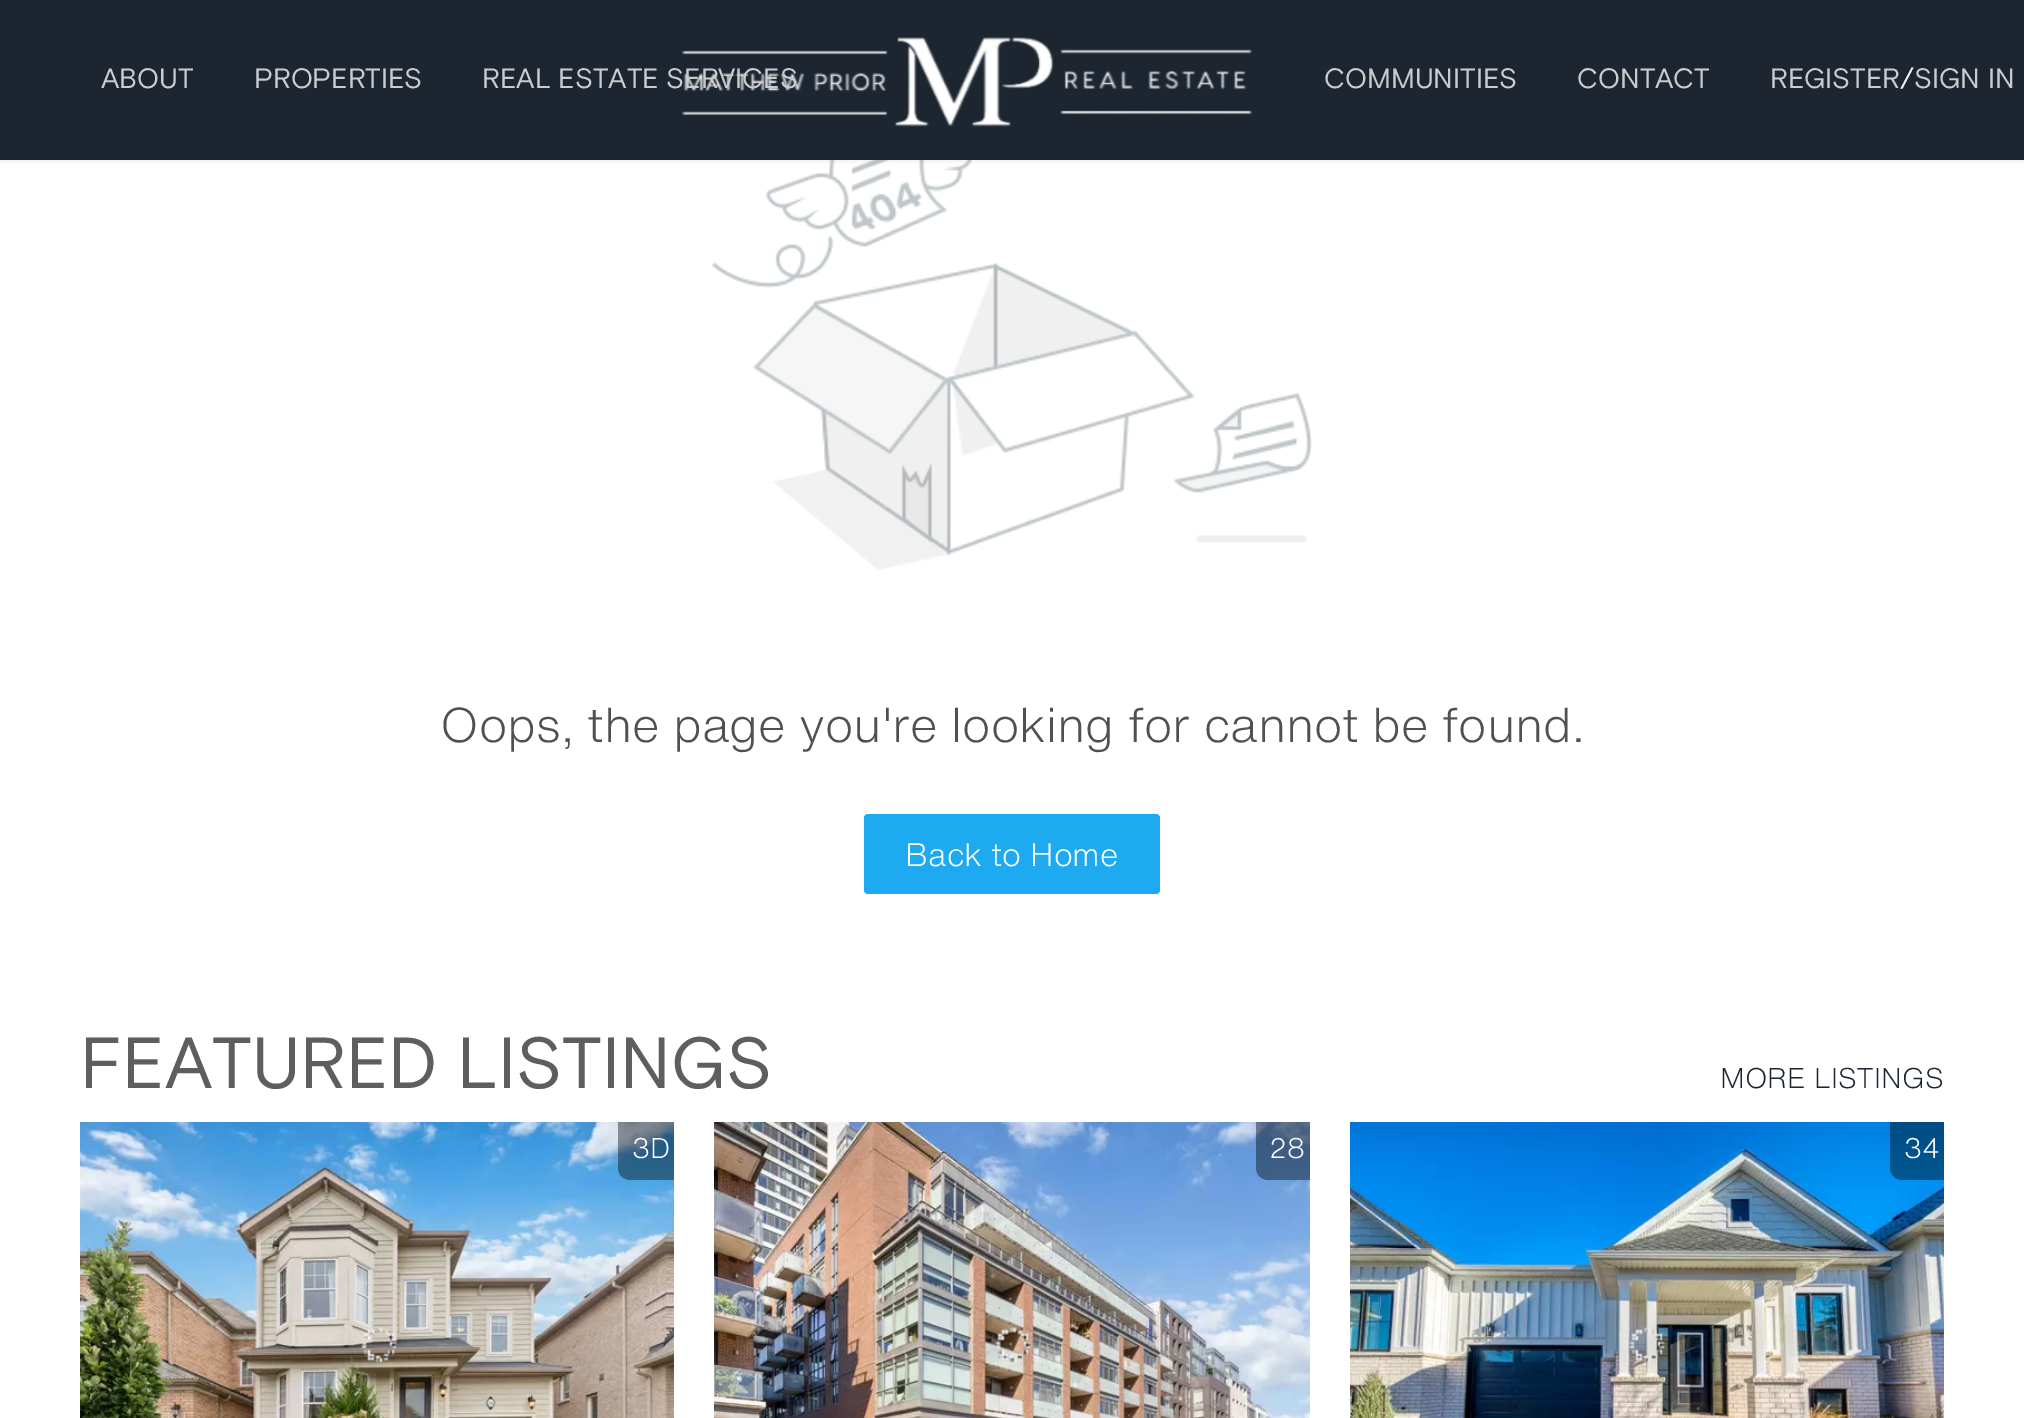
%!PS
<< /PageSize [2024 1418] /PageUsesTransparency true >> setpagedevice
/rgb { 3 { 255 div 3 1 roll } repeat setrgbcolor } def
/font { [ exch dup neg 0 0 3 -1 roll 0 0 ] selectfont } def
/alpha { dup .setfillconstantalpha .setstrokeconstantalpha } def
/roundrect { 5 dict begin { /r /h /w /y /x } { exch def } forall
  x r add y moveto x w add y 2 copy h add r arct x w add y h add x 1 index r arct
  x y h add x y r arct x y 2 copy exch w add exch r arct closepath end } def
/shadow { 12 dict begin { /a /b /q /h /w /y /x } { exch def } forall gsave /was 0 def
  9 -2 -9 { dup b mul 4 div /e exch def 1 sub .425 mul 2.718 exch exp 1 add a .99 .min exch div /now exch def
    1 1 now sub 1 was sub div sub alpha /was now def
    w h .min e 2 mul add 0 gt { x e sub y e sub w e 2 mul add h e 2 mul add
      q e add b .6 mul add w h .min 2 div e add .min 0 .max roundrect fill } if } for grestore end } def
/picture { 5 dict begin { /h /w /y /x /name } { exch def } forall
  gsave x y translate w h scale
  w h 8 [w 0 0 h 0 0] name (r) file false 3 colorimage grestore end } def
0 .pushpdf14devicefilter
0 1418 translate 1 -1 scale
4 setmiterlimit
255 255 255 rgb
0 0 2024 1418 rectfill
(img/2.rgb) 712 160 600 410 picture
0 0 0 rgb
-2 -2 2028 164 0 2 0.05 shadow
28 37 48 rgb
0 0 2024 160 rectfill
(img/1.rgb) 681 37 572 90 picture
29 170 240 rgb
864 814 296 80 4 roundrect fill
(img/3.rgb) 80 1122 594 296 picture
(img/4.rgb) 361 1327 36 36 picture
0.4 alpha
0 0 0 rgb
618 1122 moveto 674 1122 lineto 674 1180 lineto 630 1180 lineto 623.5 1180 618 1174.5 618 1168 curveto closepath fill
1 alpha
(img/5.rgb) 714 1122 596 296 picture
(img/6.rgb) 995 1327 36 36 picture
0.4 alpha
1256 1122 moveto 1310 1122 lineto 1310 1180 lineto 1268 1180 lineto 1261.5 1180 1256 1174.5 1256 1168 curveto closepath fill
1 alpha
(img/7.rgb) 1350 1122 594 296 picture
(img/8.rgb) 1629 1327 36 36 picture
0.4 alpha
1890 1122 moveto 1944 1122 lineto 1944 1180 lineto 1902 1180 lineto 1895.5 1180 1890 1174.5 1890 1168 curveto closepath fill
/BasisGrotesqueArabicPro-Regular 28 font
1 alpha
201 203 205 rgb
[
  [(ABOUT) 101 88]
  [(PROPERTIES) 254 88]
  [(REAL ESTATE SERVICES) 482 88]
  [(COMMUNITIES) 1324 88]
  [(CONTACT) 1577 88]
  [(REGISTER) 1770 88]
] { aload pop moveto show } forall
244 244 244 rgb
1900 88 moveto (/) show
201 203 205 rgb
1914 88 moveto (SIGN IN) show
/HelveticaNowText-Light 48 font
80 80 80 rgb
440 742 moveto (Oops, the page you're looking for cannot be found.) show
/HelveticaNowText-Light 32 font
255 255 255 rgb
905 866 moveto (Back to Home) show
/BasisGrotesqueArabicPro-Regular 72 font
94 94 94 rgb
80 1088 moveto (FEATURED LISTINGS) show
/HelveticaNowText-Light 28 font
28 37 48 rgb
1720 1088 moveto (MORE LISTINGS) show
255 255 255 rgb
[
  [(3D) 632 1158]
  [(28) 1269 1158]
  [(34) 1904 1158]
] { aload pop moveto show } forall
.poppdf14devicefilter showpage
